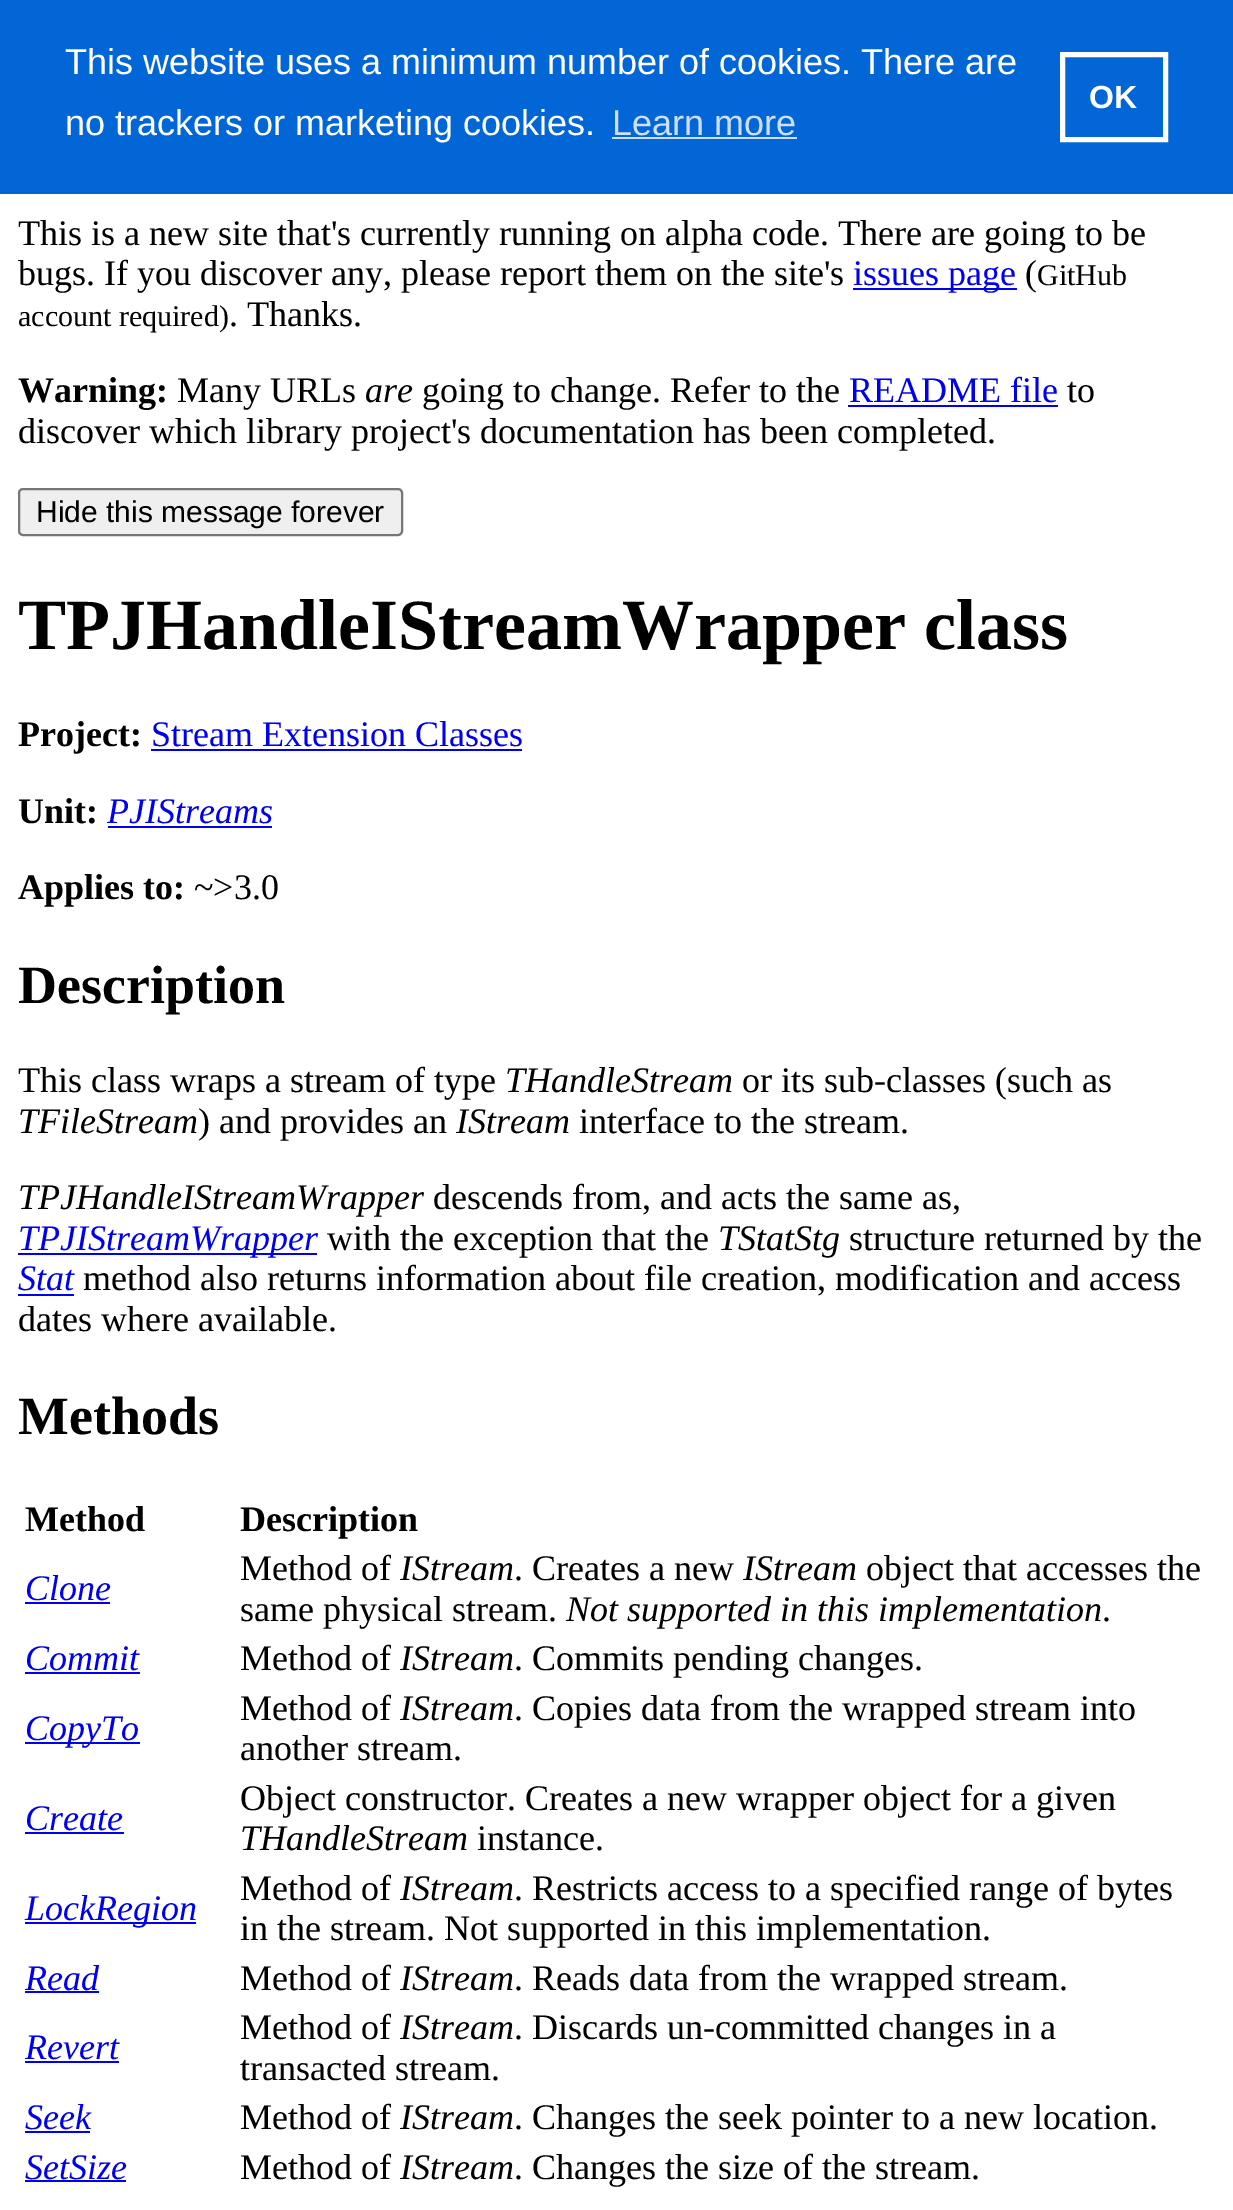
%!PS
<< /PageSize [1233 2210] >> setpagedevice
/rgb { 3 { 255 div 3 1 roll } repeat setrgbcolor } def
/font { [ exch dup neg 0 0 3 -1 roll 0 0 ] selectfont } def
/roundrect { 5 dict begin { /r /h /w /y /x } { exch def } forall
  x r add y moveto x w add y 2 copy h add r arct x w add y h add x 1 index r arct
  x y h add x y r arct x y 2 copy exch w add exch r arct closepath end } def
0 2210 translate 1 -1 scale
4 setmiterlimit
255 255 255 rgb
0 0 1233 2210 rectfill
3 102 214 rgb
0 0 1233 194 rectfill
205 224 247 rgb
612 137 185 2 rectfill
255 255 255 rgb
5 setlinewidth
1062.5 54.5 103 85 rectstroke
0 0 238 rgb
853 288 164 2 rectfill
848 405 210 2 rectfill
239 239 239 rgb
19 489 383 46 4 roundrect gsave fill grestore
118 118 118 rgb
2 setlinewidth
stroke
[
  [151 749 371 2 0 0 238]
  [108 826 164 2 0 0 238]
  [18 1253 299 2 0 0 238]
  [18 1294 56 2 0 0 238]
  [25 1602 85 2 0 0 238]
  [25 1672 115 2 0 0 238]
  [25 1742 115 2 0 0 238]
  [25 1832 99 2 0 0 238]
  [25 1922 171 2 0 0 238]
  [25 1991 74 2 0 0 238]
  [25 2061 94 2 0 0 238]
  [25 2131 65 2 0 0 238]
  [25 2180 101 2 0 0 238]
] { aload pop rgb rectfill } forall
/LiberationSans-Regular 36 font
255 255 255 rgb
65 74 moveto (This website uses a minimum number of cookies. There are) show
65 135 moveto (no trackers or marketing cookies.) show
205 224 247 rgb
612 135 moveto (Learn more) show
/LiberationSans-Bold 32 font
255 255 255 rgb
1089 108 moveto (OK) show
/LiberationSerif-Regular 36 font
0 0 0 rgb
18 245 moveto (This is a new site that's currently running on alpha code. There are going to be) show
18 285 moveto (bugs. If you discover any, please report them on the site's) show
0 0 238 rgb
853 285 moveto (issues page) show
0 0 0 rgb
1025 285 moveto (\() show
/LiberationSerif-Regular 30 font
1037 285 moveto (GitHub) show
18 326 moveto (account required\)) show
/LiberationSerif-Regular 36 font
229 326 moveto (. Thanks.) show
/LiberationSerif-Bold 36 font
18 402 moveto (Warning:) show
/LiberationSerif-Regular 36 font
177 402 moveto (Many URLs) show
/LiberationSerif-Italic 36 font
365 402 moveto (are) show
/LiberationSerif-Regular 36 font
422 402 moveto (going to change. Refer to the) show
0 0 238 rgb
849 402 moveto (README file) show
0 0 0 rgb
1067 402 moveto (to) show
18 443 moveto (discover which library project's documentation has been completed.) show
/LiberationSans-Regular 30 font
36 522 moveto (Hide this message forever) show
/LiberationSerif-Bold 72 font
18 649 moveto (TPJHandleIStreamWrapper class) show
/LiberationSerif-Bold 36 font
18 746 moveto (Project:) show
/LiberationSerif-Regular 36 font
0 0 238 rgb
151 746 moveto (Stream Extension Classes) show
/LiberationSerif-Bold 36 font
0 0 0 rgb
18 823 moveto (Unit:) show
/LiberationSerif-Italic 36 font
0 0 238 rgb
107 823 moveto (PJIStreams) show
/LiberationSerif-Bold 36 font
0 0 0 rgb
18 899 moveto (Applies to:) show
/LiberationSerif-Regular 36 font
194 899 moveto (~>3.0) show
/LiberationSerif-Bold 54 font
18 1003 moveto (Description) show
/LiberationSerif-Regular 36 font
18 1092 moveto (This class wraps a stream of type) show
/LiberationSerif-Italic 36 font
505 1092 moveto (THandleStream) show
/LiberationSerif-Regular 36 font
742 1092 moveto (or its sub-classes \(such as) show
/LiberationSerif-Italic 36 font
18 1133 moveto (TFileStream) show
/LiberationSerif-Regular 36 font
198 1133 moveto (\) and provides an) show
/LiberationSerif-Italic 36 font
456 1133 moveto (IStream) show
/LiberationSerif-Regular 36 font
579 1133 moveto (interface to the stream.) show
/LiberationSerif-Italic 36 font
18 1209 moveto (TPJHandleIStreamWrapper) show
/LiberationSerif-Regular 36 font
433 1209 moveto (descends from, and acts the same as,) show
/LiberationSerif-Italic 36 font
0 0 238 rgb
18 1250 moveto (TPJIStreamWrapper) show
/LiberationSerif-Regular 36 font
0 0 0 rgb
327 1250 moveto (with the exception that the) show
/LiberationSerif-Italic 36 font
718 1250 moveto (TStatStg) show
/LiberationSerif-Regular 36 font
849 1250 moveto (structure returned by the) show
/LiberationSerif-Italic 36 font
0 0 238 rgb
18 1290 moveto (Stat) show
/LiberationSerif-Regular 36 font
0 0 0 rgb
83 1290 moveto (method also returns information about file creation, modification and access) show
18 1331 moveto (dates where available.) show
/LiberationSerif-Bold 54 font
18 1434 moveto (Methods) show
/LiberationSerif-Bold 36 font
25 1531 moveto (Method) show
240 1531 moveto (Description) show
/LiberationSerif-Italic 36 font
0 0 238 rgb
25 1600 moveto (Clone) show
/LiberationSerif-Regular 36 font
0 0 0 rgb
240 1580 moveto (Method of) show
/LiberationSerif-Italic 36 font
400 1580 moveto (IStream) show
/LiberationSerif-Regular 36 font
514 1580 moveto (. Creates a new) show
/LiberationSerif-Italic 36 font
743 1580 moveto (IStream) show
/LiberationSerif-Regular 36 font
866 1580 moveto (object that accesses the) show
240 1621 moveto (same physical stream.) show
/LiberationSerif-Italic 36 font
566 1621 moveto (Not supported in this implementation) show
/LiberationSerif-Regular 36 font
1102 1621 moveto (.) show
/LiberationSerif-Italic 36 font
0 0 238 rgb
25 1670 moveto (Commit) show
/LiberationSerif-Regular 36 font
0 0 0 rgb
240 1670 moveto (Method of) show
/LiberationSerif-Italic 36 font
400 1670 moveto (IStream) show
/LiberationSerif-Regular 36 font
514 1670 moveto (. Commits pending changes.) show
/LiberationSerif-Italic 36 font
0 0 238 rgb
25 1740 moveto (CopyTo) show
/LiberationSerif-Regular 36 font
0 0 0 rgb
240 1720 moveto (Method of) show
/LiberationSerif-Italic 36 font
400 1720 moveto (IStream) show
/LiberationSerif-Regular 36 font
514 1720 moveto (. Copies data from the wrapped stream into) show
240 1760 moveto (another stream.) show
/LiberationSerif-Italic 36 font
0 0 238 rgb
25 1830 moveto (Create) show
/LiberationSerif-Regular 36 font
0 0 0 rgb
240 1810 moveto (Object constructor. Creates a new wrapper object for a given) show
/LiberationSerif-Italic 36 font
240 1850 moveto (THandleStream) show
/LiberationSerif-Regular 36 font
477 1850 moveto (instance.) show
/LiberationSerif-Italic 36 font
0 0 238 rgb
25 1920 moveto (LockRegion) show
/LiberationSerif-Regular 36 font
0 0 0 rgb
240 1900 moveto (Method of) show
/LiberationSerif-Italic 36 font
400 1900 moveto (IStream) show
/LiberationSerif-Regular 36 font
514 1900 moveto (. Restricts access to a specified range of bytes) show
240 1940 moveto (in the stream. Not supported in this implementation.) show
/LiberationSerif-Italic 36 font
0 0 238 rgb
25 1990 moveto (Read) show
/LiberationSerif-Regular 36 font
0 0 0 rgb
240 1990 moveto (Method of) show
/LiberationSerif-Italic 36 font
400 1990 moveto (IStream) show
/LiberationSerif-Regular 36 font
514 1990 moveto (. Reads data from the wrapped stream.) show
/LiberationSerif-Italic 36 font
0 0 238 rgb
25 2059 moveto (Revert) show
/LiberationSerif-Regular 36 font
0 0 0 rgb
240 2039 moveto (Method of) show
/LiberationSerif-Italic 36 font
400 2039 moveto (IStream) show
/LiberationSerif-Regular 36 font
514 2039 moveto (. Discards un-committed changes in a) show
240 2080 moveto (transacted stream.) show
/LiberationSerif-Italic 36 font
0 0 238 rgb
25 2129 moveto (Seek) show
/LiberationSerif-Regular 36 font
0 0 0 rgb
240 2129 moveto (Method of) show
/LiberationSerif-Italic 36 font
400 2129 moveto (IStream) show
/LiberationSerif-Regular 36 font
514 2129 moveto (. Changes the seek pointer to a new location.) show
/LiberationSerif-Italic 36 font
0 0 238 rgb
25 2179 moveto (SetSize) show
/LiberationSerif-Regular 36 font
0 0 0 rgb
240 2179 moveto (Method of) show
/LiberationSerif-Italic 36 font
400 2179 moveto (IStream) show
/LiberationSerif-Regular 36 font
514 2179 moveto (. Changes the size of the stream.) show
showpage
